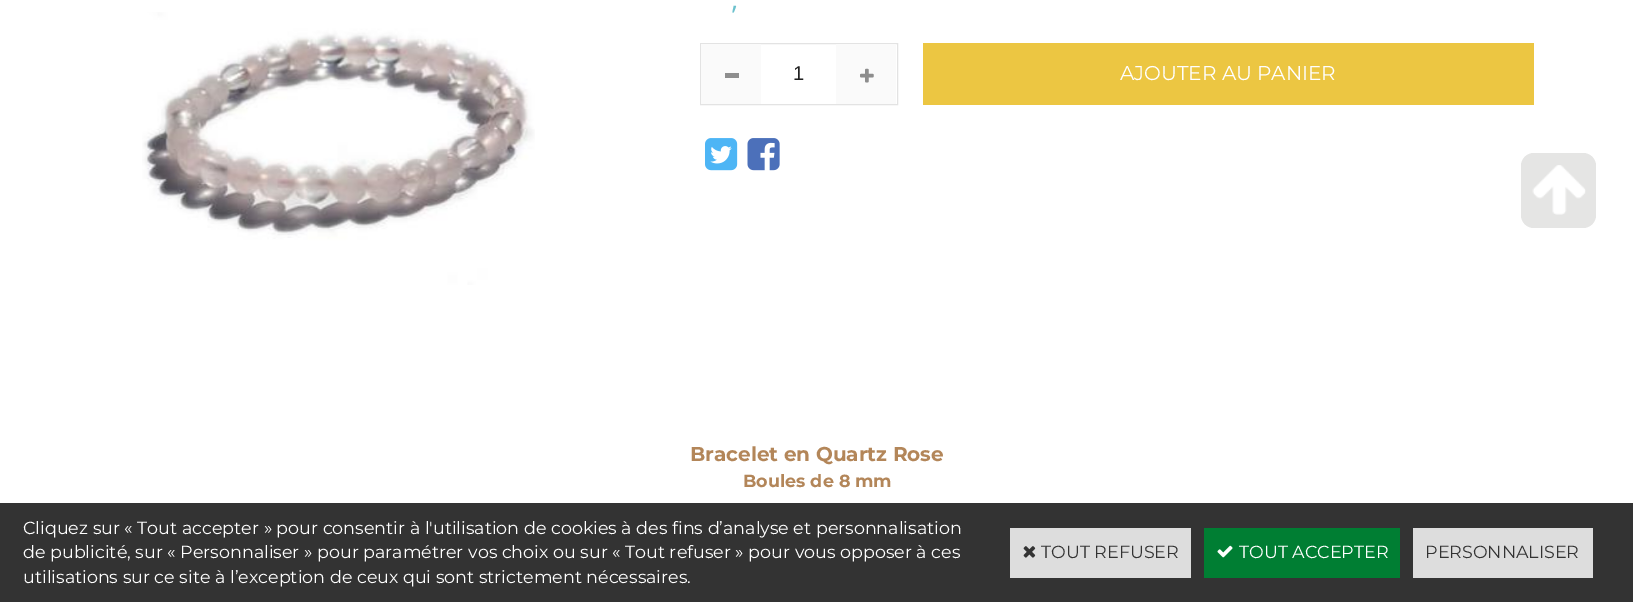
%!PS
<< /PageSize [1633 602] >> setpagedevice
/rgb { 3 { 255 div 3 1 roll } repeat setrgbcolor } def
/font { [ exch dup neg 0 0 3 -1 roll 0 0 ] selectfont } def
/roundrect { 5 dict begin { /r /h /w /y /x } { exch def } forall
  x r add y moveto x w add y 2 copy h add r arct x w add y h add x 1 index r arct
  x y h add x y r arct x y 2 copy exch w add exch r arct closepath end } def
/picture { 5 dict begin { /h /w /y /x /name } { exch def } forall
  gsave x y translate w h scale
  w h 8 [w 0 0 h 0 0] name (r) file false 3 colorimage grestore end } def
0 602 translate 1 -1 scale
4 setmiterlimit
255 255 255 rgb
0 0 1633 602 rectfill
(img/1.rgb) 142 12 393 273 picture
227 227 227 rgb
700.5 43.5 197 61 rectstroke
[
  [701 44 60 60 250 250 250]
  [725 73 14 5 142 142 142]
  [836 44 60 60 250 250 250]
] { aload pop rgb rectfill } forall
(img/2.rgb) 860 68 14 15 picture
236 198 66 rgb
923 43 611 62 rectfill
(img/3.rgb) 705 138 33 33 picture
(img/4.rgb) 747 138 33 33 picture
229 229 228 rgb
1521 153 75 75 13 roundrect fill
(img/5.rgb) 1532 165 54 50 picture
51 51 51 rgb
0 503 1633 99 rectfill
221 221 221 rgb
1010 528 181 50 rectfill
(img/6.rgb) 1023 546 13 12 picture
0 126 51 rgb
1204 528 196 50 rectfill
(img/7.rgb) 1217 545 16 13 picture
221 221 221 rgb
1413 528 180 50 rectfill
/OpenSans-Regular 28 font
107 193 205 rgb
731 9 moveto (,) show
/LiberationSans-Regular 20 font
33 33 33 rgb
793 80 moveto (1) show
/Montserrat-Regular 20 font
255 255 255 rgb
1120 80 moveto (AJOUTER AU PANIER) show
/Montserrat-Bold 20 font
179 134 89 rgb
690 461 moveto (Bracelet en Quartz Rose) show
/Montserrat-Bold 17.5 font
743 487 moveto (Boules de 8 mm) show
/Montserrat-Regular 17.5 font
255 255 255 rgb
[
  [(Cliquez sur « Tout accepter » pour consentir à l'utilisation de cookies à des fins d’analyse et personnalisation) 23 534]
  [(de publicité, sur « Personnaliser » pour paramétrer vos choix ou sur « Tout refuser » pour vous opposer à ces) 23 558]
  [(utilisations sur ce site à l’exception de ceux qui sont strictement nécessaires.) 23 583]
] { aload pop moveto show } forall
51 51 51 rgb
1041 558 moveto (TOUT REFUSER) show
255 255 255 rgb
1239 558 moveto (TOUT ACCEPTER) show
51 51 51 rgb
1425 558 moveto (PERSONNALISER) show
showpage
